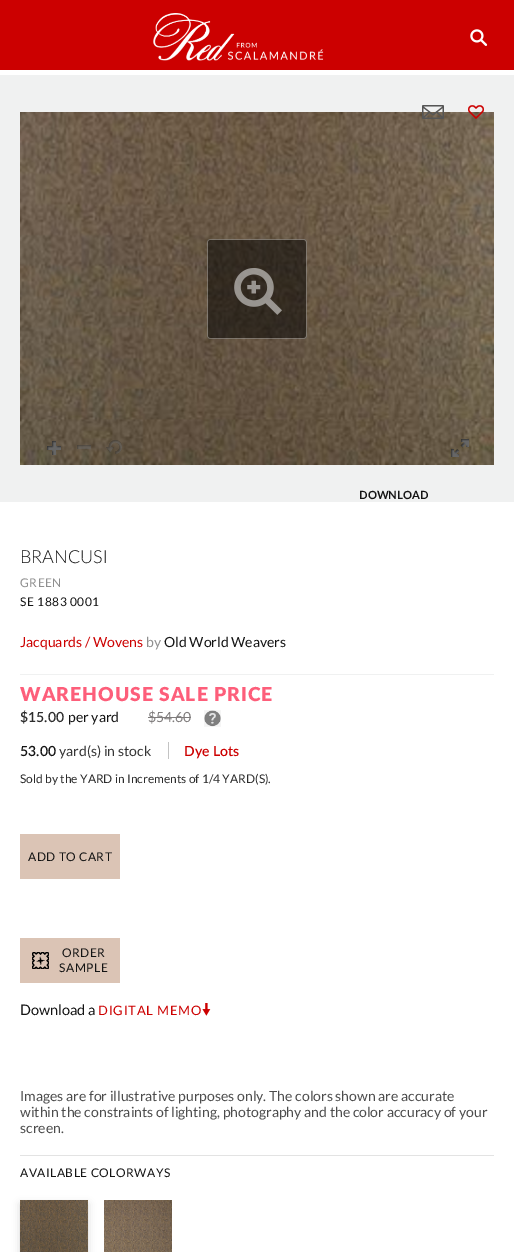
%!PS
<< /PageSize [514 1252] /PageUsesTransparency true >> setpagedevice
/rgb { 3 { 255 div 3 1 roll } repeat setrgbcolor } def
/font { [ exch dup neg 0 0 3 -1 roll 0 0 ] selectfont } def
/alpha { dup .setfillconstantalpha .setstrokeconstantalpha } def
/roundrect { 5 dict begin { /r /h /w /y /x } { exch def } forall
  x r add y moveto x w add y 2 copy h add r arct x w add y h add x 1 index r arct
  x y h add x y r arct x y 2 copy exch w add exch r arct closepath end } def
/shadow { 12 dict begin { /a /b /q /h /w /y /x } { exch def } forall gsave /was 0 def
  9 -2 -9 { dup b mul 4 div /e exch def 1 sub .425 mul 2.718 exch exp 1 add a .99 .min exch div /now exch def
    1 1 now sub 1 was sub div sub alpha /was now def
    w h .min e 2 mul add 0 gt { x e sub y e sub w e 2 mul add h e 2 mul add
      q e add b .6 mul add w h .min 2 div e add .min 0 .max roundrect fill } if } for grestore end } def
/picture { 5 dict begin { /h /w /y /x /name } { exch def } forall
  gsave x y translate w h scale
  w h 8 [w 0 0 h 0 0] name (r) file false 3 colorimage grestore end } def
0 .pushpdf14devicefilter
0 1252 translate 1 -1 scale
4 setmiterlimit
255 255 255 rgb
0 0 514 1252 rectfill
204 0 0 rgb
0 0 514 70 rectfill
(img/1.rgb) 153 13 171 48 picture
(img/2.rgb) 470 29 18 17 picture
240 241 241 rgb
0 75 514 427 rectfill
(img/3.rgb) 20 112 474 353 picture
(img/4.rgb) 207 239 100 100 picture
(img/5.rgb) 47 441 14 14 picture
(img/6.rgb) 77 445 14 4 picture
(img/7.rgb) 106 440 16 14 picture
(img/8.rgb) 451 439 18 18 picture
20 674 474 1 rectfill
(img/9.rgb) 422 105 22 14 picture
(img/10.rgb) 468 105 16 14 picture
127 124 124 rgb
148 717 43 1 rectfill
(img/11.rgb) 204 710 17 17 picture
[
  [168 742 1 17 195 195 195]
  [20 834 100 45 219 196 181]
  [20 938 100 45 219 196 181]
] { aload pop rgb rectfill } forall
(img/12.rgb) 32 952 17 17 picture
(img/13.rgb) 202 1003 9 13 picture
227 227 227 rgb
20 1155 474 1 rectfill
0 0 0 rgb
20 1204 68 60 0 4 0.16 shadow
(img/14.rgb) 20 1200 68 52 picture
(img/15.rgb) 104 1200 68 52 picture
/Lato-Bold 11.25 font
20 20 20 rgb
359 499 moveto (DOWNLOAD) show
/Lato-Light 18 font
20 563 moveto (BRANCUSI) show
/Lato-Regular 12 font
143 143 143 rgb
20 587 moveto 0.5 0 (GREEN) ashow
20 20 20 rgb
20 606 moveto 0.5 0 (SE 1883 0001) ashow
/Lato-Regular 14 font
204 0 0 rgb
20 647 moveto (Jacquards / Wovens) show
143 143 143 rgb
146 647 moveto (by) show
20 20 20 rgb
164 647 moveto (Old World Weavers) show
/Lato-Black 19.25 font
253 94 122 rgb
20 701 moveto 1 0 (WAREHOUSE SALE PRICE) ashow
/Lato-SemiBold 14 font
44 44 44 rgb
20 722 moveto ($15.00) show
/Lato-Regular 14 font
20 20 20 rgb
68 722 moveto (per yard) show
127 124 124 rgb
148 722 moveto ($54.60) show
/Lato-SemiBold 14 font
20 20 20 rgb
20 756 moveto (53.00) show
/Lato-Regular 14 font
53 53 53 rgb
59 756 moveto (yard\(s\) in stock) show
/Lato-SemiBold 14 font
204 0 0 rgb
184 756 moveto (Dye Lots) show
/Lato-Regular 12 font
44 44 44 rgb
20 783 moveto (Sold by the YARD in Increments of 1/4 YARD\(S\).) show
20 20 20 rgb
28 861 moveto 0.5 0 (ADD TO CART) ashow
62 957 moveto 0.5 0 (ORDER) ashow
59 972 moveto 0.5 0 (SAMPLE) ashow
/Lato-Regular 14.5 font
20 1015 moveto (Download a) show
/Lato-Regular 13 font
204 0 0 rgb
98 1015 moveto 0.75 0 (DIGITAL MEMO) ashow
/Lato-Regular 14 font
76 76 76 rgb
[
  [(Images are for illustrative purposes only. The colors shown are accurate) 20 1101]
  [(within the constraints of lighting, photography and the color accuracy of your) 20 1117]
  [(screen.) 20 1133]
] { aload pop moveto show } forall
/Lato-Regular 12 font
20 20 20 rgb
20 1177 moveto 0.5 0 (AVAILABLE COLORWAYS) ashow
.poppdf14devicefilter showpage
